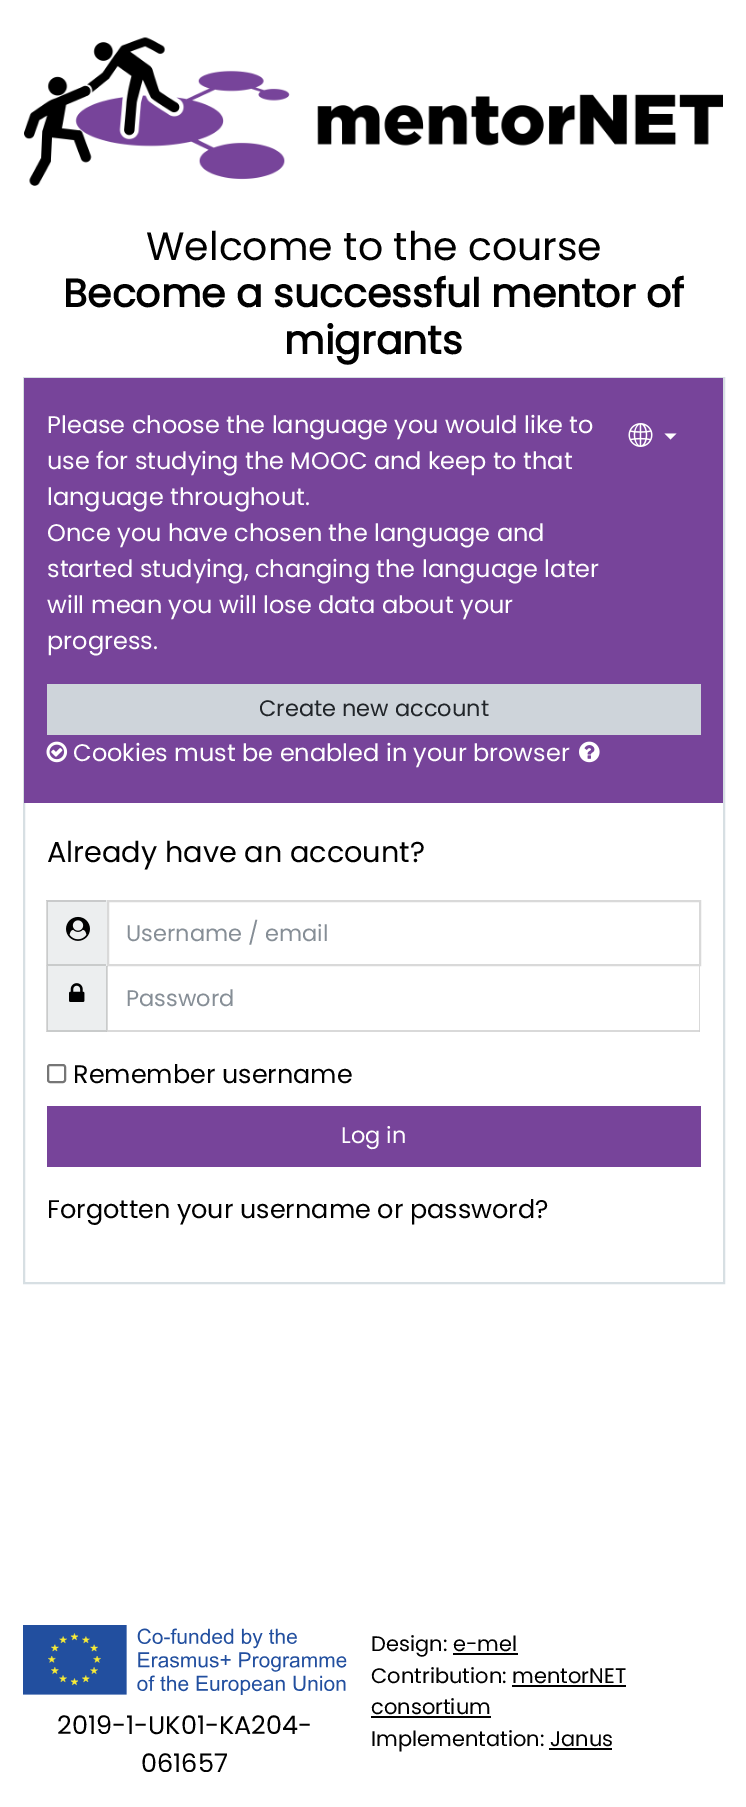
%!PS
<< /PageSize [746 1807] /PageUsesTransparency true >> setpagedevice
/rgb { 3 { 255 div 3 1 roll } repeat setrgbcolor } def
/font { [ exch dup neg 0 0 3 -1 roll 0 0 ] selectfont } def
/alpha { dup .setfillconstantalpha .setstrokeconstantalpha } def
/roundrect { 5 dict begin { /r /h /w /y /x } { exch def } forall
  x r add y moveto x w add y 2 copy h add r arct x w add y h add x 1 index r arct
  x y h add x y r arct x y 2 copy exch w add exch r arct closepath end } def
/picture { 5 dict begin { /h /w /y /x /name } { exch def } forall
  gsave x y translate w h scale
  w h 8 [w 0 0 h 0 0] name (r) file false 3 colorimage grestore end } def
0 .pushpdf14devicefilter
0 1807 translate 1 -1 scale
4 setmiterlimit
255 255 255 rgb
0 0 746 1807 rectfill
(img/1.rgb) 24 37 699 149 picture
215 223 227 rgb
2 setlinewidth
24 378 700 905 rectstroke
119 68 154 rgb
24 378 699 425 rectfill
(img/2.rgb) 628 423 25 24 picture
255 255 255 rgb
664.5 433.5 moveto 676.5 433.5 lineto 670.5 439.5 lineto closepath fill
206 212 218 rgb
47 684 654 51 rectfill
(img/3.rgb) 46 741 22 22 picture
(img/4.rgb) 579 741 21 22 picture
236 238 239 rgb
47 900 60 132 rectfill
201 202 203 rgb
46 900 moveto 106 900 lineto 106 902 lineto 48 902 lineto closepath fill
0.15 alpha
0 0 0 rgb
106 966 moveto 46 966 lineto 48 964 lineto 106 964 lineto closepath fill
46 966 moveto 46 900 lineto 48 902 lineto 48 964 lineto closepath fill
1 alpha
(img/5.rgb) 66 916 24 25 picture
217 217 217 rgb
108 901 592 64 rectstroke
0.15 alpha
0 0 0 rgb
106 1032 moveto 46 1032 lineto 48 1030 lineto 106 1030 lineto closepath fill
46 1032 moveto 46 966 lineto 48 966 lineto 48 1030 lineto closepath fill
1 alpha
(img/6.rgb) 69 983 16 19 picture
217 217 217 rgb
700 966 moveto 700 1032 lineto 699 1030 lineto 699 966 lineto closepath fill
0.15 alpha
0 0 0 rgb
700 1032 moveto 106 1032 lineto 108 1030 lineto 699 1030 lineto closepath fill
106 1032 moveto 106 966 lineto 108 966 lineto 108 1030 lineto closepath fill
1 alpha
118 118 118 rgb
48 1065 17 17 2 roundrect stroke
119 68 154 rgb
47 1106 654 61 rectfill
(img/7.rgb) 23 1625 324 70 picture
[
  [453 1653 65 2 0 0 0]
  [512 1685 114 2 0 0 0]
  [371 1716 120 2 0 0 0]
  [549 1748 63 2 0 0 0]
] { aload pop rgb rectfill } forall
/Poppins-Regular 39.4 font
146 260 moveto (Welcome to the course) show
/Poppins-Bold 39.4 font
63 307 moveto (Become a successful mentor of) show
284 354 moveto (migrants) show
/Poppins-Regular 24 font
255 255 255 rgb
[
  [(Please choose the language you would like to) 47 433]
  [(use for studying the MOOC and keep to that) 47 469]
  [(language throughout.) 47 505]
  [(Once you have chosen the language and) 47 541]
  [(started studying, changing the language later) 47 577]
  [(will mean you will lose data about your) 47 613]
  [(progress.) 47 649]
] { aload pop moveto show } forall
/Poppins-Regular 22.5 font
33 37 41 rgb
259 716 moveto (Create new account) show
/Poppins-Regular 24 font
255 255 255 rgb
73 761 moveto (Cookies must be enabled in your browser) show
/Poppins-Regular 28.75 font
0 0 0 rgb
47 862 moveto (Already have an account?) show
/Poppins-Regular 22.5 font
134 142 150 rgb
126 941 moveto (Username / email) show
126 1006 moveto (Password) show
/Poppins-Regular 25.5 font
0 0 0 rgb
73 1083 moveto (Remember username) show
/Poppins-Regular 22.5 font
255 255 255 rgb
341 1143 moveto (Log in) show
/Poppins-Regular 25.5 font
0 0 0 rgb
[
  [(Forgotten your username or password?) 47 1218]
  [(2019-1-UK01-KA204-) 57 1734]
  [(061657) 141 1772]
] { aload pop moveto show } forall
/Poppins-Regular 21 font
[
  [(Design: e-mel) 371 1651]
  [(Contribution: mentorNET) 371 1683]
  [(consortium) 371 1714]
  [(Implementation: Janus) 371 1746]
] { aload pop moveto show } forall
.poppdf14devicefilter showpage
